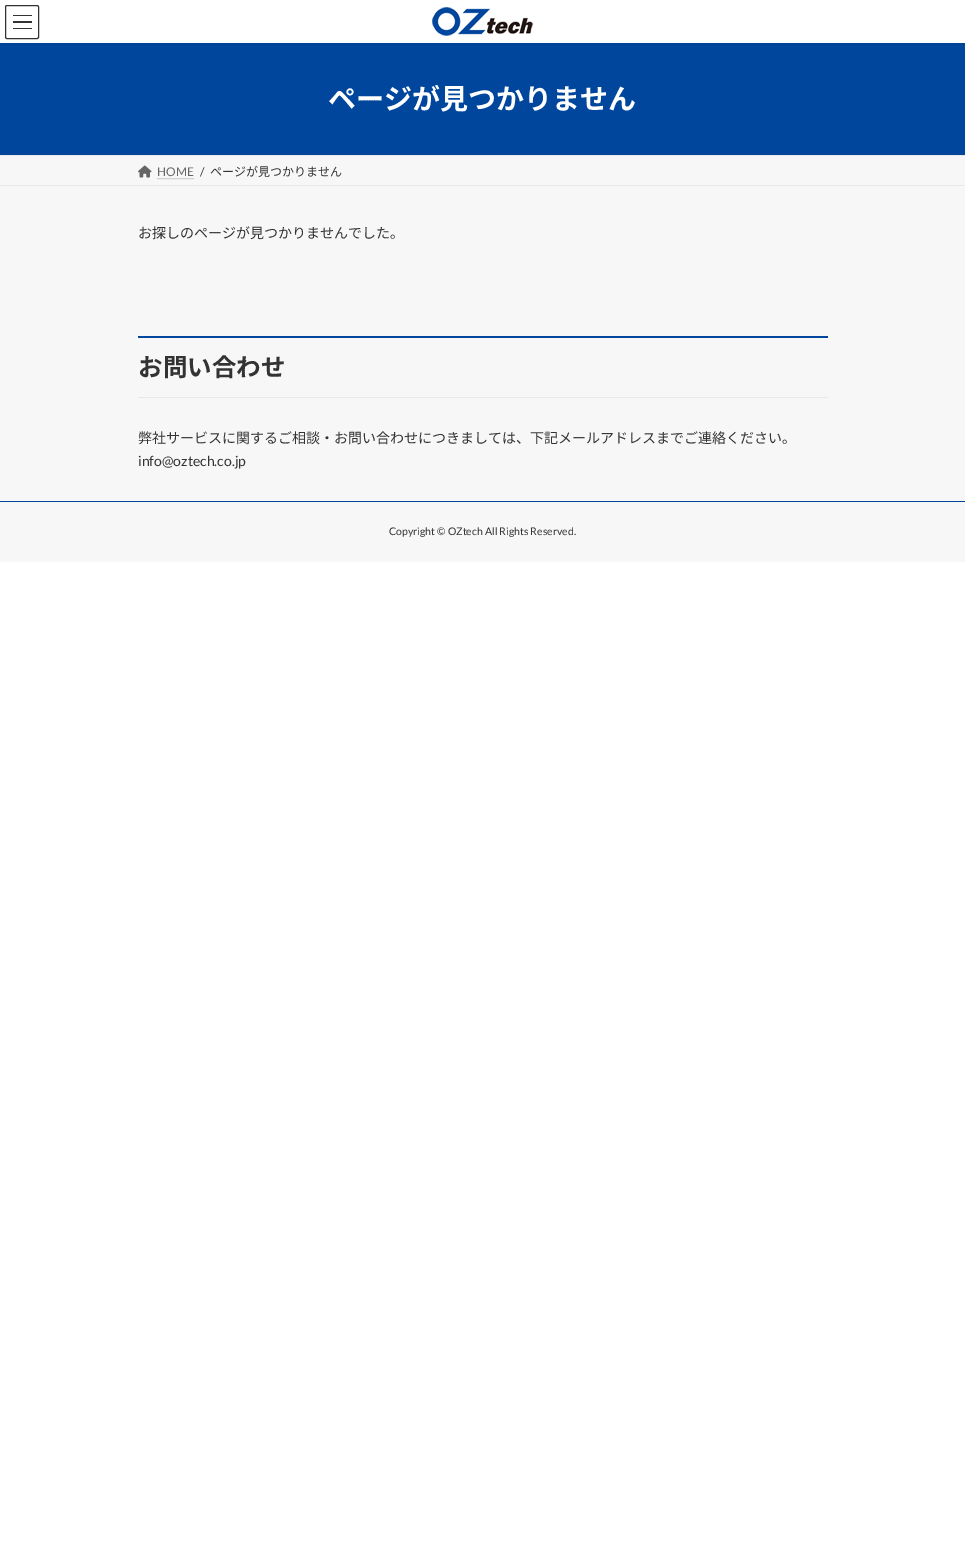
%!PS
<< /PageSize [965 1547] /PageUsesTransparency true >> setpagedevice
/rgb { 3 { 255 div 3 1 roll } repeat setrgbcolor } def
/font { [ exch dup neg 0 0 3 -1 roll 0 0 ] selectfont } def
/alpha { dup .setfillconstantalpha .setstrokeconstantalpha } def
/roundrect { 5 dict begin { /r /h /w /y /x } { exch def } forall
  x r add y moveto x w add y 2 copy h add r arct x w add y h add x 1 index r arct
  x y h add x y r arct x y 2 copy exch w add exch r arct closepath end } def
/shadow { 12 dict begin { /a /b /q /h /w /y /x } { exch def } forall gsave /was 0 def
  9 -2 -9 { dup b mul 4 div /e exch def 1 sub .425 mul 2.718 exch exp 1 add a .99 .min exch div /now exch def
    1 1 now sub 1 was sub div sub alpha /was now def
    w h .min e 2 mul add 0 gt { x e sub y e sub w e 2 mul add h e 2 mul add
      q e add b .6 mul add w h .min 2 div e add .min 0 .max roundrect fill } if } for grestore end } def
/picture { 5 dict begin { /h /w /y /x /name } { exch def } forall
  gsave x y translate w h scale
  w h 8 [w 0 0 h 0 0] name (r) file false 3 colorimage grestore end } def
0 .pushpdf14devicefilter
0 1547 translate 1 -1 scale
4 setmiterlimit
255 255 255 rgb
0 0 965 1547 rectfill
247 247 247 rgb
0 156 965 406 rectfill
0 70 157 rgb
0 43 965 112 rectfill
0 0 0 rgb
0 1 965 43 0 1.5 0.05 shadow
255 255 255 rgb
0 0 965 43 rectfill
(img/1.rgb) 432 7 101 29 picture
[
  [13 15 19 1 51 51 51]
  [13 21 19 2 51 51 51]
  [13 28 19 1 51 51 51]
] { aload pop rgb rectfill } forall
5.5 5.5 33 33 1.5 roundrect stroke
232 232 232 rgb
0 155 965 1 rectfill
0 185 965 1 rectfill
(img/2.rgb) 138 165 14 13 picture
173 173 173 rgb
[1 1] 0 setdash
157.5 178.5 moveto 194 178.5 lineto stroke
[
  [138 336 690 2 0 70 157]
  [138 397 690 1 232 232 232]
  [0 501 965 1 0 70 157]
] { aload pop rgb rectfill } forall
/NotoSansJP-Bold 28 font
255 255 255 rgb
328 109 moveto (ページが見つかりません) show
/Lato-Regular 12 font
102 102 102 rgb
157 176 moveto (HOME) show
51 51 51 rgb
200 176 moveto (/) show
/NotoSansJP-Regular 12 font
210 176 moveto (ページが見つかりません) show
/NotoSansJP-Regular 14 font
138 238 moveto (お探しのページが見つかりませんでした。) show
/NotoSansJP-Bold 24.5 font
138 376 moveto (お問い合わせ) show
/NotoSansJP-Regular 14 font
138 443 moveto (弊社サービスに関するご相談・お問い合わせにつきましては、下記メールアドレスまでご連絡ください。) show
/Lato-Regular 14 font
138 466 moveto (info@oztech.co.jp) show
/Lato-Regular 10.5 font
389 535 moveto (Copyright © OZtech All Rights Reserved.) show
.poppdf14devicefilter showpage
